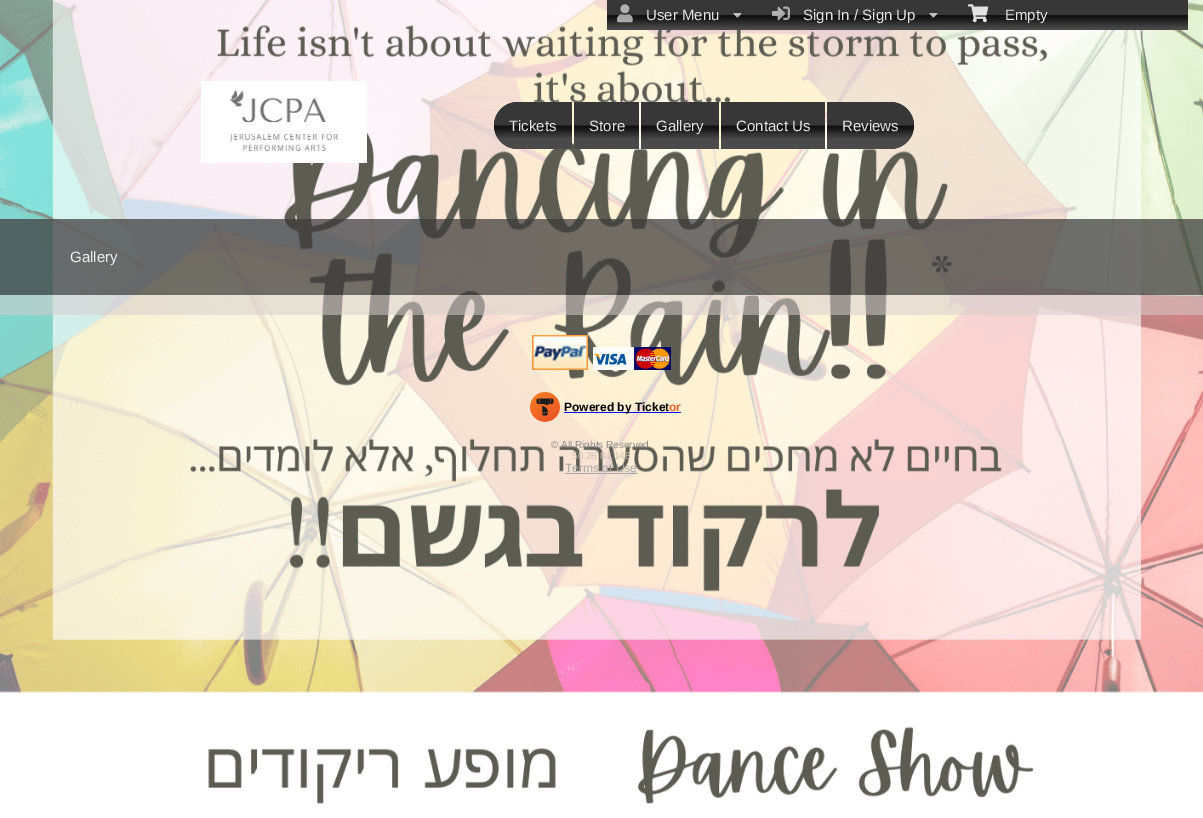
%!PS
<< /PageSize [1203 818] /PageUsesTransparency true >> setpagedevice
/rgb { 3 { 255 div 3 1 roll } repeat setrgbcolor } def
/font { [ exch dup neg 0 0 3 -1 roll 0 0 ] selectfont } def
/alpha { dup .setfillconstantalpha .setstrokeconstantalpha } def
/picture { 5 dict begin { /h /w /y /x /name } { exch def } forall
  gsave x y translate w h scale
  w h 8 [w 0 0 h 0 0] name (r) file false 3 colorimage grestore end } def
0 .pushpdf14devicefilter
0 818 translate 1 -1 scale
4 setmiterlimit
255 255 255 rgb
0 0 1203 818 rectfill
(img/1.rgb) 0 0 1203 804 picture
(img/2.rgb) 607 0 155 30 picture
(img/3.rgb) 617 4 16 19 picture
(img/4.rgb) 733 13 9 5 picture
(img/5.rgb) 762 0 196 30 picture
(img/6.rgb) 772 6 18 15 picture
(img/4.rgb) 929 13 9 5 picture
(img/7.rgb) 958 0 230 30 picture
(img/8.rgb) 968 4 21 19 picture
(img/9.rgb) 201 81 166 82 picture
17 17 17 rgb
517.5 102 moveto 572 102 lineto 572 149 lineto 517.5 149 lineto 504.5 149 494 138.5 494 125.5 curveto 494 112.5 504.5 102 517.5 102 curveto closepath fill
(img/10.rgb) 494 102 78 47 picture
(img/11.rgb) 574 102 65 47 picture
(img/12.rgb) 641 102 78 47 picture
(img/13.rgb) 721 102 104 47 picture
827 102 moveto 890.5 102 lineto 903.5 102 914 112.5 914 125.5 curveto 914 138.5 903.5 149 890.5 149 curveto 827 149 lineto closepath fill
(img/14.rgb) 827 102 87 47 picture
0.73 alpha
61 59 59 rgb
0 219 1203 76 rectfill
0.53 alpha
214 205 205 rgb
0 295 1203 20 rectfill
1 alpha
(img/15.rgb) 532 335 56 35 picture
(img/16.rgb) 593 347 78 23 picture
(img/17.rgb) 530 392 30 30 picture
0 0 238 rgb
564 412 105 1 rectfill
170 170 170 rgb
565 473 73 1 rectfill
/LiberationSans-Regular 15 font
227 227 227 rgb
[
  [(User Menu) 646 20]
  [(Sign In / Sign Up) 803 20]
  [(Empty) 1005 20]
  [(Tickets) 509 131]
  [(Store) 589 131]
  [(Gallery) 656 131]
  [(Contact Us) 736 131]
  [(Reviews) 842 131]
] { aload pop moveto show } forall
238 238 238 rgb
70 262 moveto (Gallery) show
/LiberationSans-Bold 12 font
0 0 0 rgb
564 411 moveto (Powered by Ticket) show
0 0 238 rgb
669 412 12 1 rectfill
237 97 43 rgb
669 411 moveto (or) show
/LiberationSans-Regular 10 font
136 136 136 rgb
551 448 moveto (© All Rights Reserved) show
210 195 179 rgb
572 459 moveto (50.28.84.148) show
/LiberationSans-Regular 12 font
170 170 170 rgb
565 472 moveto (Terms of Use) show
.poppdf14devicefilter showpage
